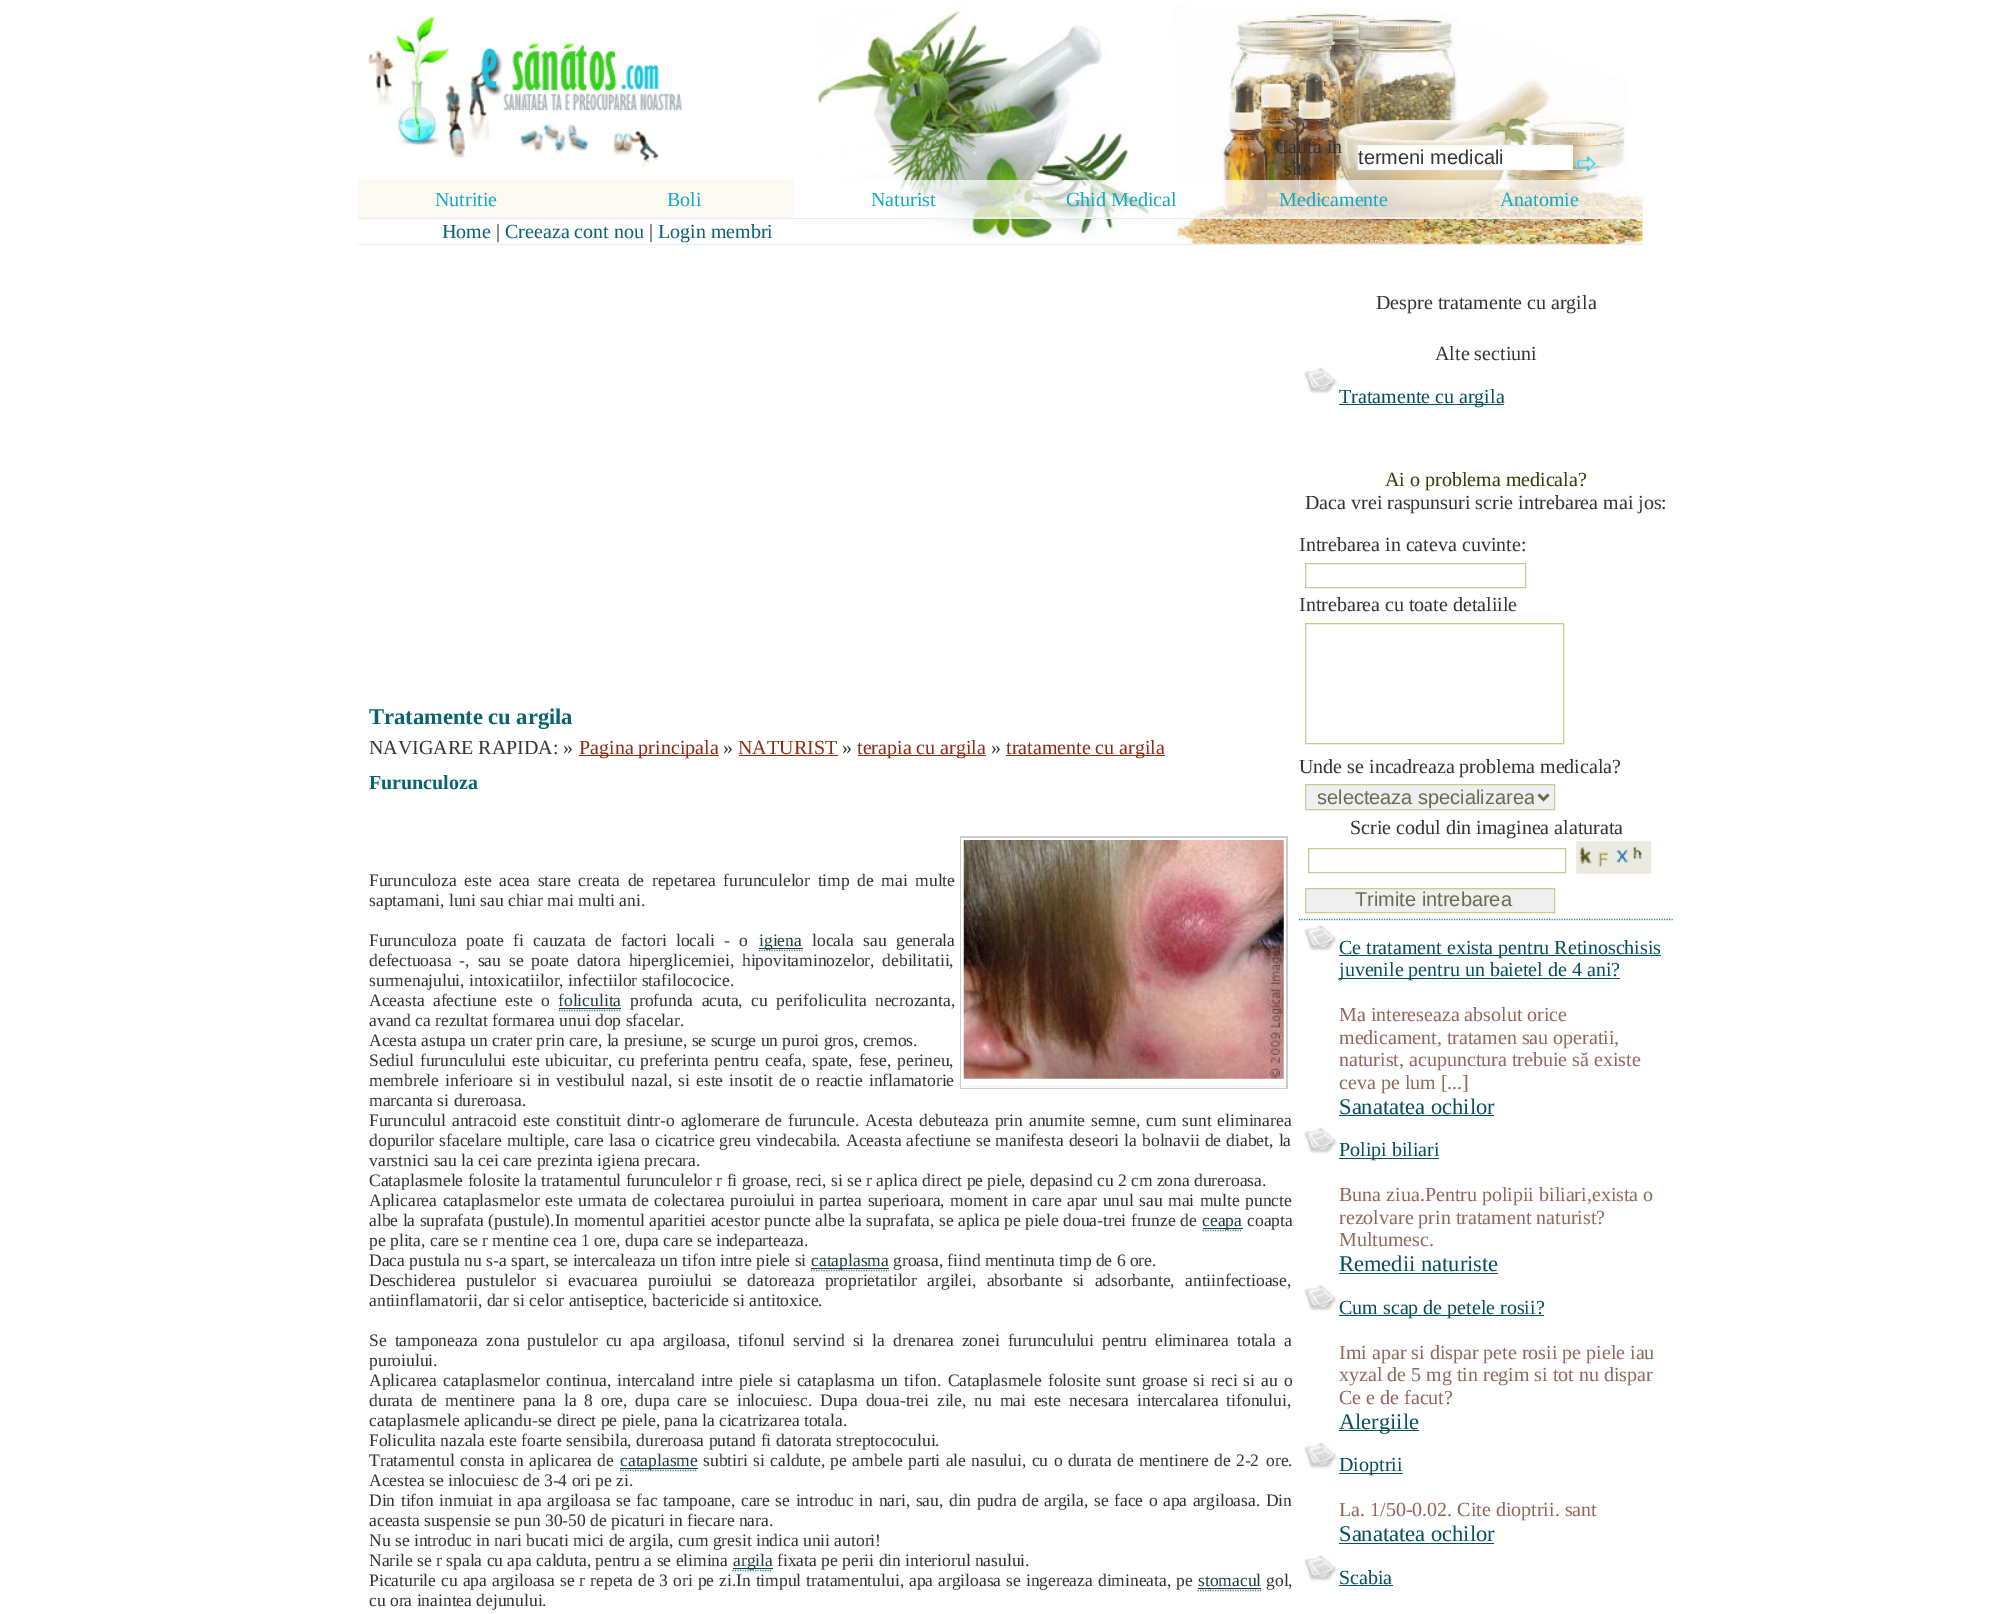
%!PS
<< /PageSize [1998 1614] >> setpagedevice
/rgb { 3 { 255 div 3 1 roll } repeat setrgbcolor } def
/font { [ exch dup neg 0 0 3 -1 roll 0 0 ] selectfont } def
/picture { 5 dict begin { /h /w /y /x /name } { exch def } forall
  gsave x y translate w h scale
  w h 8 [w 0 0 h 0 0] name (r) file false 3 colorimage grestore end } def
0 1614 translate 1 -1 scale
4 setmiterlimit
255 255 255 rgb
0 0 1998 1614 rectfill
230 238 242 rgb
358 244 1285 1 rectfill
(img/1.rgb) 367 16 316 151 picture
(img/2.rgb) 817 5 811 175 picture
255 255 255 rgb
1358 145 215 25 rectfill
241 241 241 rgb
1.2 setlinewidth
[1.25 1.25] 0 setdash
1357.5 145.5 moveto 1572.5 145.5 lineto stroke
1572 145 moveto 1572 170 lineto stroke
1357.5 169.5 moveto 1572.5 169.5 lineto stroke
1358 145 moveto 1358 170 lineto stroke
(img/3.rgb) 1576 156 21 16 picture
(img/4.rgb) 899 180 744 38 picture
230 238 242 rgb
358 218 1285 1 rectfill
252 249 243 rgb
358 180 436 38 rectfill
(img/5.rgb) 928 219 715 25 picture
[
  [579 755 140 1 145 41 16]
  [739 755 99 1 145 41 16]
  [858 755 128 1 145 41 16]
  [1006 755 159 1 145 41 16]
  [960 836 328 253 204 204 204]
  [961 838 325 250 255 255 255]
  [961 1086 325 1 241 241 241]
] { aload pop rgb rectfill } forall
(img/6.rgb) 963 840 321 239 picture
68 130 145 rgb
759 950.5 moveto 802.5 950.5 lineto stroke
33 61 68 rgb
759 948 44 1 rectfill
68 130 145 rgb
559 1010.5 moveto 621 1010.5 lineto stroke
33 61 68 rgb
559 1008 62 1 rectfill
68 130 145 rgb
1202.5 1230.5 moveto 1242.5 1230.5 lineto stroke
33 61 68 rgb
1203 1228 40 1 rectfill
68 130 145 rgb
811 1270.5 moveto 889 1270.5 lineto stroke
33 61 68 rgb
811 1268 78 1 rectfill
68 130 145 rgb
620 1470.5 moveto 697.5 1470.5 lineto stroke
33 61 68 rgb
620 1468 78 1 rectfill
68 130 145 rgb
732.5 1570.5 moveto 772.5 1570.5 lineto stroke
33 61 68 rgb
733 1568 40 1 rectfill
68 130 145 rgb
1197.5 1590.5 moveto 1261 1590.5 lineto stroke
33 61 68 rgb
1198 1588 63 1 rectfill
(img/7.rgb) 1304 367 34 27 picture
4 78 96 rgb
1339 404 165 1 rectfill
201 202 142 rgb
1 setlinewidth
[] 0 setdash
1305.5 563.5 220 24 rectstroke
1305.5 623.5 258 120 rectstroke
239 239 239 rgb
1305.5 784.5 moveto 1554.5 784.5 lineto 1554.5 809.5 lineto 1305.5 809.5 lineto closepath gsave fill grestore
201 202 142 rgb
stroke
104 107 84 rgb
2.5 setlinewidth
1538.5 794.5 moveto 1543.5 799.5 lineto 1548.5 794.5 lineto stroke
201 202 142 rgb
1 setlinewidth
1308.5 848.5 257 24 rectstroke
(img/8.rgb) 1576 841 76 33 picture
68 130 145 rgb
1.2 setlinewidth
[1.25 1.25] 0 setdash
1299 919.5 moveto 1674 919.5 lineto stroke
239 239 239 rgb
1305.5 888.5 moveto 1554.5 888.5 lineto 1554.5 912.5 lineto 1305.5 912.5 lineto closepath gsave fill grestore
201 202 142 rgb
1 setlinewidth
[] 0 setdash
stroke
(img/9.rgb) 1304 925 34 27 picture
[
  [1339 955 322 1 4 78 96]
  [1339 978 281 1 4 78 96]
  [1339 1115 155 1 4 78 96]
] { aload pop rgb rectfill } forall
(img/7.rgb) 1304 1127 34 27 picture
1339 1158 100 1 rectfill
1339 1273 159 1 rectfill
(img/9.rgb) 1304 1285 34 27 picture
1339 1315 205 1 rectfill
1339 1430 80 1 rectfill
(img/7.rgb) 1304 1442 34 27 picture
1339 1473 64 1 rectfill
1339 1543 155 1 rectfill
(img/10.rgb) 1304 1555 34 27 picture
1339 1585 54 1 rectfill
/LiberationSerif-Regular 20 font
51 51 51 rgb
1275 153 moveto (Cauta in) show
1284 175 moveto (site) show
/LiberationSans-Regular 20 font
1358 164 moveto (termeni medicali) show
/LiberationSerif-Regular 20 font
17 170 194 rgb
[
  [(Nutritie) 435 206]
  [(Boli) 667 206]
  [(Naturist) 871 206]
  [(Ghid Medical) 1066 206]
  [(Medicamente) 1279 206]
  [(Anatomie) 1500 206]
] { aload pop moveto show } forall
10 99 113 rgb
442 238 moveto (Home) show
51 51 51 rgb
496 238 moveto (|) show
10 99 113 rgb
505 238 moveto (Creeaza cont nou) show
51 51 51 rgb
649 238 moveto (|) show
10 99 113 rgb
658 238 moveto (Login membri) show
/LiberationSerif-Bold 22.5 font
369 724 moveto (Tratamente cu argila) show
/LiberationSerif-Regular 20 font
51 51 51 rgb
369 754 moveto (NAVIGARE RAPIDA: ») show
145 41 16 rgb
579 754 moveto (Pagina principala) show
51 51 51 rgb
723 754 moveto (») show
145 41 16 rgb
738 754 moveto (NATURIST) show
51 51 51 rgb
842 754 moveto (») show
145 41 16 rgb
857 754 moveto (terapia cu argila) show
51 51 51 rgb
991 754 moveto (») show
145 41 16 rgb
1006 754 moveto (tratamente cu argila) show
/LiberationSerif-Bold 20 font
10 99 113 rgb
369 789 moveto (Furunculoza) show
/LiberationSerif-Regular 17.5 font
51 51 51 rgb
369 886 moveto 3.25 0 32 (Furunculoza este acea stare creata de repetarea furunculelor timp de mai multe) widthshow
369 906 moveto (saptamani, luni sau chiar mai multi ani.) show
369 946 moveto 5 0 32 (Furunculoza poate fi cauzata de factori locali - o) widthshow
33 61 68 rgb
759 946 moveto (igiena) show
51 51 51 rgb
812 946 moveto 5 0 32 (locala sau generala) widthshow
369 966 moveto 3.5 0 32 (defectuoasa -, sau se poate datora hiperglicemiei, hipovitaminozelor, debilitatii,) widthshow
369 986 moveto (surmenajului, intoxicatiilor, infectiilor stafilococice.) show
369 1006 moveto 4 0 32 (Aceasta afectiune este o) widthshow
33 61 68 rgb
558 1006 moveto (foliculita) show
51 51 51 rgb
630 1006 moveto 4 0 32 (profunda acuta, cu perifoliculita necrozanta,) widthshow
369 1026 moveto (avand ca rezultat formarea unui dop sfacelar.) show
369 1046 moveto (Acesta astupa un crater prin care, la presiune, se scurge un puroi gros, cremos.) show
369 1066 moveto 1.6 0 32 (Sediul furunculului este ubicuitar, cu preferinta pentru ceafa, spate, fese, perineu,) widthshow
369 1086 moveto 1.6 0 32 (membrele inferioare si in vestibulul nazal, si este insotit de o reactie inflamatorie) widthshow
369 1106 moveto (marcanta si dureroasa.) show
369 1126 moveto 1.6 0 32 (Furunculul antracoid este constituit dintr-o aglomerare de furuncule. Acesta debuteaza prin anumite semne, cum sunt eliminarea) widthshow
369 1146 moveto 0.8 0 32 (dopurilor sfacelare multiple, care lasa o cicatrice greu vindecabila. Aceasta afectiune se manifesta deseori la bolnavii de diabet, la) widthshow
369 1166 moveto (varstnici sau la cei care prezinta igiena precara.) show
369 1186 moveto (Cataplasmele folosite la tratamentul furunculelor r fi groase, reci, si se r aplica direct pe piele, depasind cu 2 cm zona dureroasa.) show
369 1206 moveto 1.15 0 32 (Aplicarea cataplasmelor este urmata de colectarea puroiului in partea superioara, moment in care apar unul sau mai multe puncte) widthshow
369 1226 moveto (albe la suprafata \(pustule\).In momentul aparitiei acestor puncte albe la suprafata, se aplica pe piele doua-trei frunze de) show
33 61 68 rgb
1202 1226 moveto (ceapa) show
51 51 51 rgb
[
  [(coapta) 1247 1226]
  [(pe plita, care se r mentine cea 1 ore, dupa care se indeparteaza.) 369 1246]
  [(Daca pustula nu s-a spart, se intercaleaza un tifon intre piele si) 369 1266]
] { aload pop moveto show } forall
33 61 68 rgb
811 1266 moveto (cataplasma) show
51 51 51 rgb
893 1266 moveto (groasa, fiind mentinuta timp de 6 ore.) show
369 1286 moveto 5.9 0 32 (Deschiderea pustulelor si evacuarea puroiului se datoreaza proprietatilor argilei, absorbante si adsorbante, antiinfectioase,) widthshow
369 1306 moveto (antiinflamatorii, dar si celor antiseptice, bactericide si antitoxice.) show
369 1346 moveto 3.75 0 32 (Se tamponeaza zona pustulelor cu apa argiloasa, tifonul servind si la drenarea zonei furunculului pentru eliminarea totala a) widthshow
369 1366 moveto (puroiului.) show
369 1386 moveto 1.7 0 32 (Aplicarea cataplasmelor continua, intercaland intre piele si cataplasma un tifon. Cataplasmele folosite sunt groase si reci si au o) widthshow
369 1406 moveto 3.5 0 32 (durata de mentinere pana la 8 ore, dupa care se inlocuiesc. Dupa doua-trei zile, nu mai este necesara intercalarea tifonului,) widthshow
369 1426 moveto (cataplasmele aplicandu-se direct pe piele, pana la cicatrizarea totala.) show
369 1446 moveto (Foliculita nazala este foarte sensibila, dureroasa putand fi datorata streptococului.) show
369 1466 moveto 1 0 32 (Tratamentul consta in aplicarea de) widthshow
33 61 68 rgb
620 1466 moveto (cataplasme) show
51 51 51 rgb
703 1466 moveto 1 0 32 (subtiri si caldute, pe ambele parti ale nasului, cu o durata de mentinere de 2-2) widthshow
1266 1466 moveto (ore.) show
369 1486 moveto (Acestea se inlocuiesc de 3-4 ori pe zi.) show
369 1506 moveto 1.15 0 32 (Din tifon inmuiat in apa argiloasa se fac tampoane, care se introduc in nari, sau, din pudra de argila, se face o apa argiloasa. Din) widthshow
[
  [(aceasta suspensie se pun 30-50 de picaturi in fiecare nara.) 369 1526]
  [(Nu se introduc in nari bucati mici de argila, cum gresit indica unii autori!) 369 1546]
  [(Narile se r spala cu apa calduta, pentru a se elimina) 369 1566]
] { aload pop moveto show } forall
33 61 68 rgb
733 1566 moveto (argila) show
51 51 51 rgb
777 1566 moveto (fixata pe perii din interiorul nasului.) show
369 1586 moveto 0.6 0 32 (Picaturile cu apa argiloasa se r repeta de 3 ori pe zi.In timpul tratamentului, apa argiloasa se ingereaza dimineata, pe) widthshow
33 61 68 rgb
1198 1586 moveto (stomacul) show
51 51 51 rgb
1266 1586 moveto (gol,) show
369 1606 moveto (cu ora inaintea dejunului.) show
/LiberationSerif-Regular 20 font
1376 309 moveto (Despre tratamente cu argila) show
1435 360 moveto (Alte sectiuni) show
4 78 96 rgb
1339 403 moveto (Tratamente cu argila) show
43 64 1 rgb
1385 486 moveto (Ai o problema medicala?) show
51 51 51 rgb
[
  [(Daca vrei raspunsuri scrie intrebarea mai jos:) 1305 509]
  [(Intrebarea in cateva cuvinte:) 1299 551]
  [(Intrebarea cu toate detaliile) 1299 611]
  [(Unde se incadreaza problema medicala?) 1299 773]
] { aload pop moveto show } forall
gsave
1318 785 216 24 rectclip
/LiberationSans-Regular 20 font
104 107 84 rgb
1317 804 moveto (selecteaza specializarea) show
grestore
1350 834 moveto (Scrie codul din imaginea alaturata) show
/LiberationSans-Regular 20 font
104 107 84 rgb
1355 906 moveto (Trimite intrebarea) show
/LiberationSerif-Regular 20 font
4 78 96 rgb
1339 954 moveto (Ce tratament exista pentru Retinoschisis) show
1339 976 moveto (juvenile pentru un baietel de 4 ani?) show
147 102 92 rgb
[
  [(Ma intereseaza absolut orice) 1339 1021]
  [(medicament, tratamen sau operatii,) 1339 1044]
  [(naturist, acupunctura trebuie să existe) 1339 1066]
  [(ceva pe lum [...]) 1339 1089]
] { aload pop moveto show } forall
/LiberationSerif-Regular 22.5 font
4 78 96 rgb
1339 1114 moveto (Sanatatea ochilor) show
/LiberationSerif-Regular 20 font
1339 1156 moveto (Polipi biliari) show
147 102 92 rgb
[
  [(Buna ziua.Pentru polipii biliari,exista o) 1339 1201]
  [(rezolvare prin tratament naturist?) 1339 1224]
  [(Multumesc.) 1339 1246]
] { aload pop moveto show } forall
/LiberationSerif-Regular 22.5 font
4 78 96 rgb
1339 1271 moveto (Remedii naturiste) show
/LiberationSerif-Regular 20 font
1339 1314 moveto (Cum scap de petele rosii?) show
147 102 92 rgb
[
  [(Imi apar si dispar pete rosii pe piele iau) 1339 1359]
  [(xyzal de 5 mg tin regim si tot nu dispar) 1339 1381]
  [(Ce e de facut?) 1339 1404]
] { aload pop moveto show } forall
/LiberationSerif-Regular 22.5 font
4 78 96 rgb
1339 1429 moveto (Alergiile) show
/LiberationSerif-Regular 20 font
1339 1471 moveto (Dioptrii) show
147 102 92 rgb
1339 1516 moveto (La. 1/50-0.02. Cite dioptrii. sant) show
/LiberationSerif-Regular 22.5 font
4 78 96 rgb
1339 1541 moveto (Sanatatea ochilor) show
/LiberationSerif-Regular 20 font
1339 1584 moveto (Scabia) show
showpage
